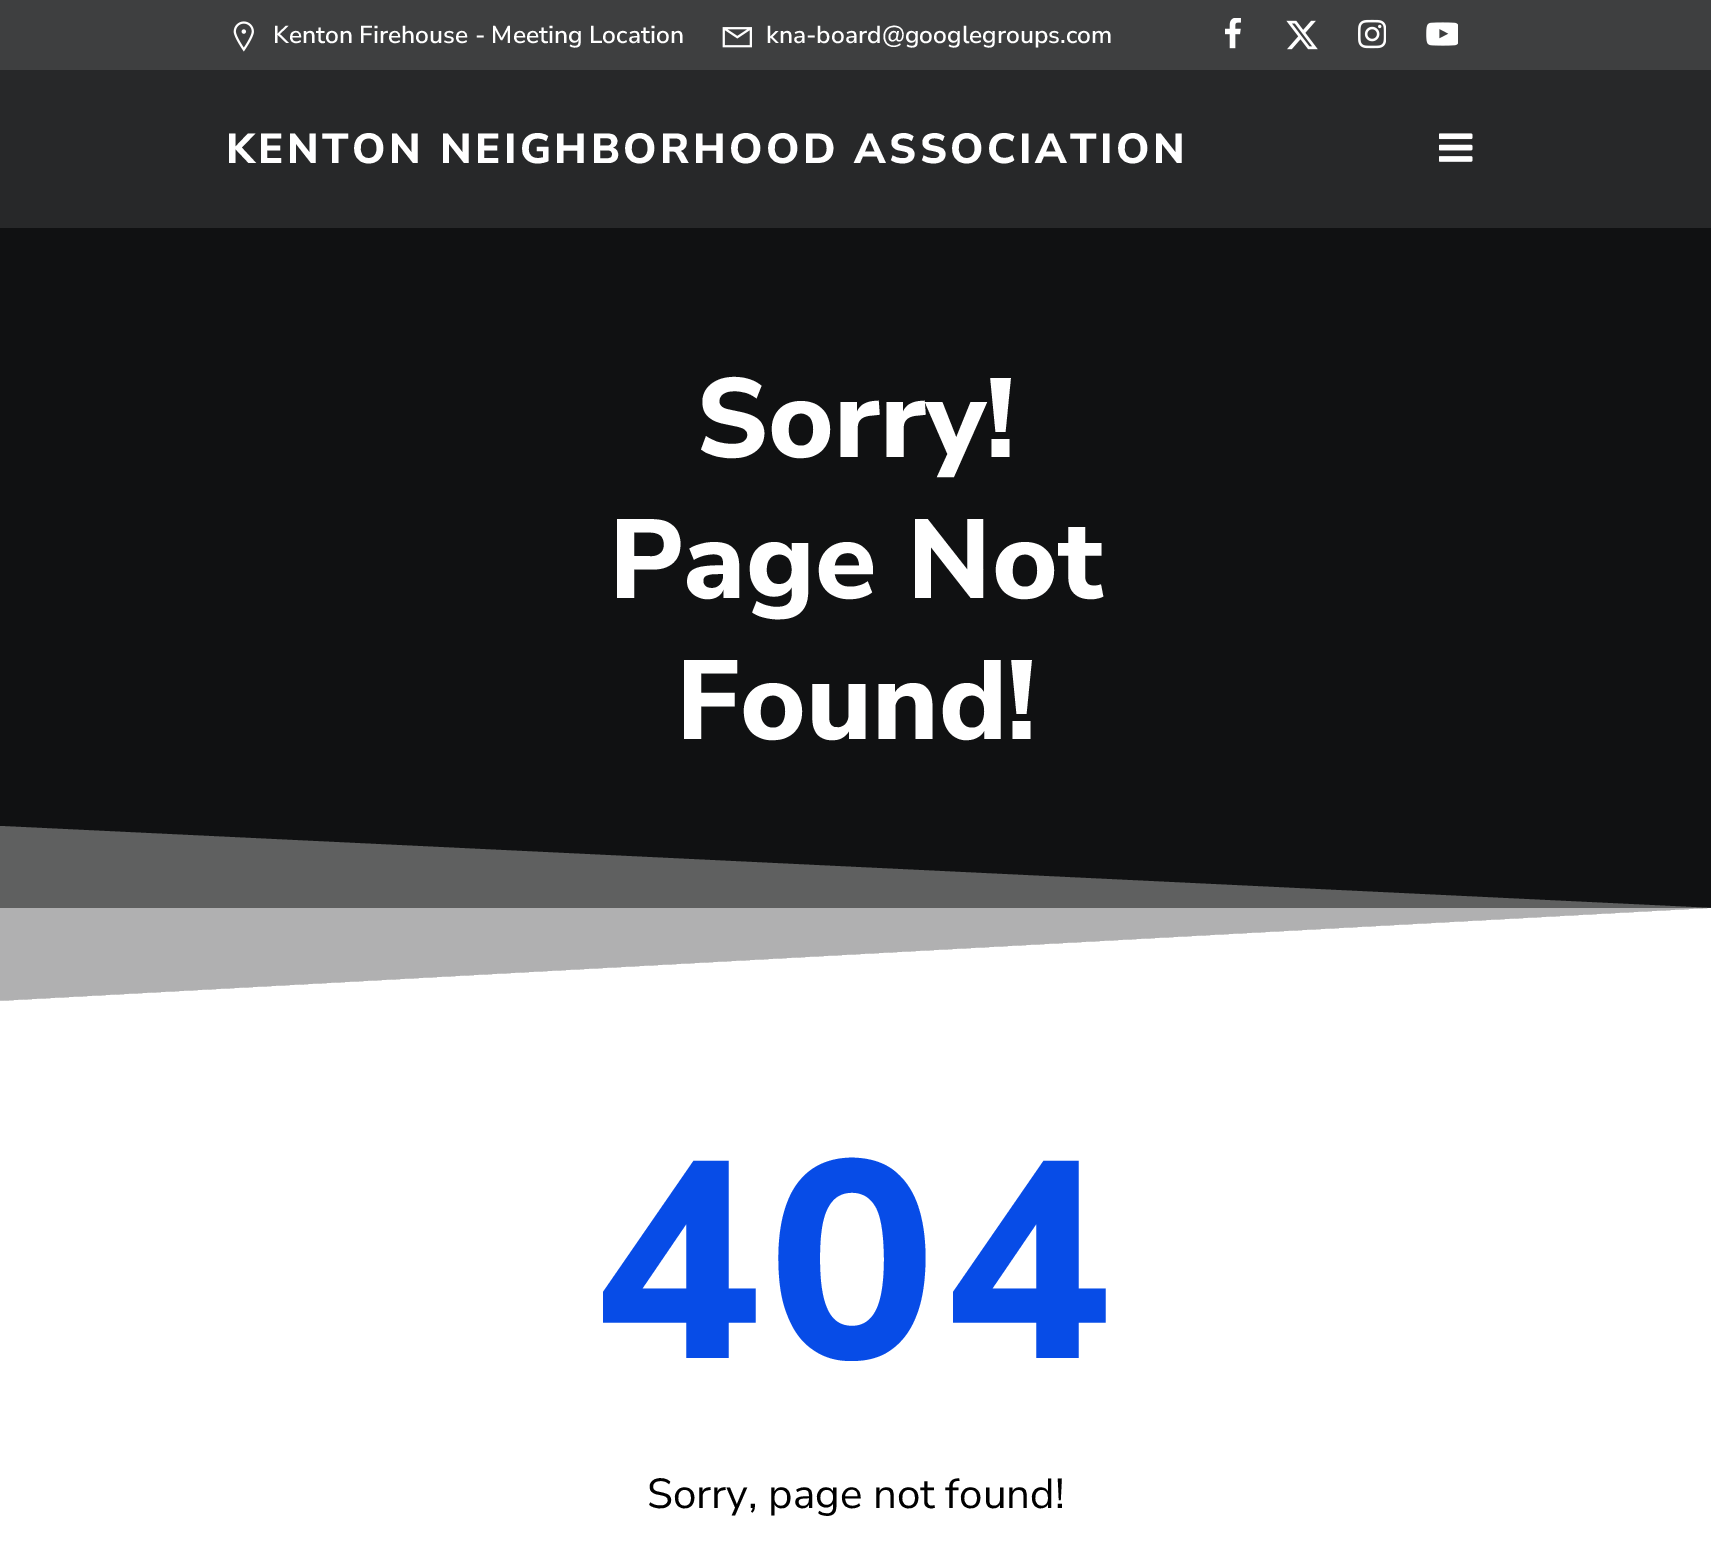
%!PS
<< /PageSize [1711 1553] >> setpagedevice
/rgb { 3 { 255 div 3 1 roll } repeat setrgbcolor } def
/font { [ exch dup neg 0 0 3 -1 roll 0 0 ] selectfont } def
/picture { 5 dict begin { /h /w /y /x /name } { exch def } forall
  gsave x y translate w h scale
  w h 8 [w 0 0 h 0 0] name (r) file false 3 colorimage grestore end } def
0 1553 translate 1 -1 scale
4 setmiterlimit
255 255 255 rgb
0 0 1711 1553 rectfill
62 63 64 rgb
0 0 1711 70 rectfill
(img/1.rgb) 233 21 21 31 picture
(img/2.rgb) 722 27 30 21 picture
(img/3.rgb) 1225 18 16 31 picture
(img/4.rgb) 1286 20 32 30 picture
(img/5.rgb) 1358 19 28 30 picture
(img/6.rgb) 1426 22 32 24 picture
39 40 41 rgb
0 70 1711 158 rectfill
(img/7.rgb) 1439 133 34 29 picture
16 17 18 rgb
0 228 1711 773 rectfill
95 96 96 rgb
0 826 moveto 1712 908 lineto 0 908 lineto closepath fill
176 176 177 rgb
0 908 moveto 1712 908 lineto 0 1001 lineto closepath fill
255 255 255 rgb
0 1001 moveto 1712 908 lineto 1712 1001 lineto closepath fill
/NunitoSans-SemiBold 24.5 font
273 43 moveto (Kenton Firehouse - Meeting Location) show
766 43 moveto (kna-board@googlegroups.com) show
/NunitoSans-ExtraBold 42 font
226 163 moveto 3.5 0 (KENTON NEIGHBORHOOD ASSOCIATION) ashow
/NunitoSans-ExtraBold 112 font
[
  [(Sorry!) 696 457]
  [(Page Not) 609 598]
  [(Found!) 676 739]
] { aload pop moveto show } forall
/NunitoSans-ExtraBold 280 font
7 76 231 rgb
593 1358 moveto 7 0 (404) ashow
/NunitoSans-Regular 42 font
0 0 0 rgb
647 1508 moveto (Sorry, page not found!) show
showpage
